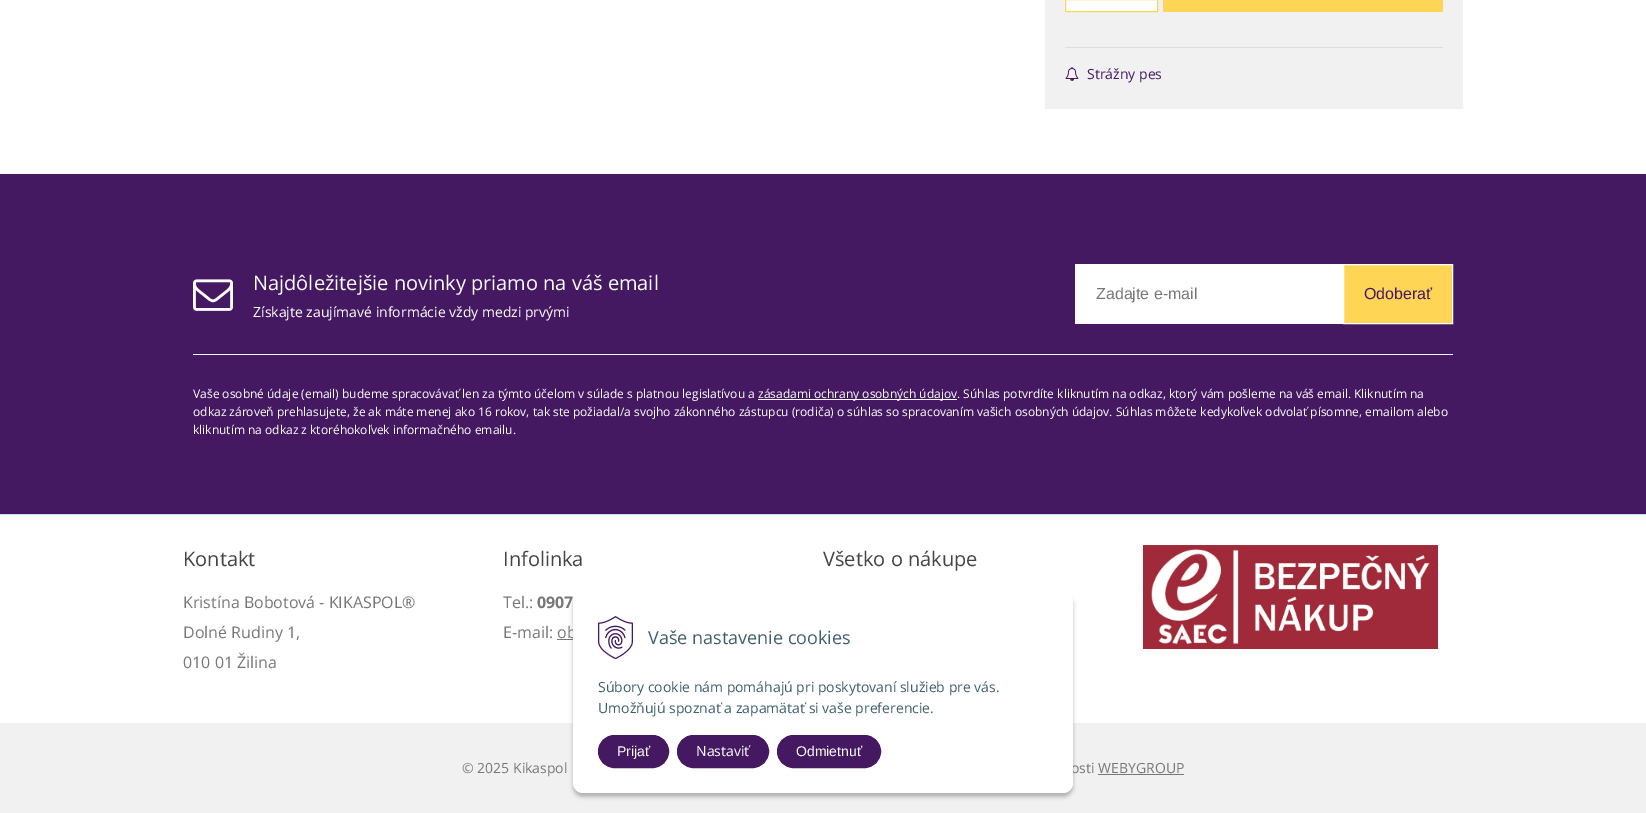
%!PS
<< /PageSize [1646 813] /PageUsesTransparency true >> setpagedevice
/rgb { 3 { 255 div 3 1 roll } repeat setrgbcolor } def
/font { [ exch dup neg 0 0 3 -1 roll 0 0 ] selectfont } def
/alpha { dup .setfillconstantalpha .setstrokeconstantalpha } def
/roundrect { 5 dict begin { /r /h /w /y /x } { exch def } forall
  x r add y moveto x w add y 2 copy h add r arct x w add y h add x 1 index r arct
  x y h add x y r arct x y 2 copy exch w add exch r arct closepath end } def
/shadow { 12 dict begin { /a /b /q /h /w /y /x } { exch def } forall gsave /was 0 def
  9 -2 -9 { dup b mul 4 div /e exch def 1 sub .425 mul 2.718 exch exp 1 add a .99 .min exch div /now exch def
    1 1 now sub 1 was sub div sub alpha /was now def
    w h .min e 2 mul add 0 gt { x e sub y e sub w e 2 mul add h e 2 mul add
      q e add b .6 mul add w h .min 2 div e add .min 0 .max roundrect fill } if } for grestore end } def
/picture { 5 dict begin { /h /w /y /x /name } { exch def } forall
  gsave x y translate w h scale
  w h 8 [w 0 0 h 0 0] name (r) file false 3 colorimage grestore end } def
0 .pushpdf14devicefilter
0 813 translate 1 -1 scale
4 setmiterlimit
255 255 255 rgb
0 0 1646 813 rectfill
241 241 241 rgb
1045 0 418 109 rectfill
255 255 255 rgb
1065.5 -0.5 moveto 1157.5 -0.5 lineto 1157.5 11.5 lineto 1065.5 11.5 lineto closepath gsave fill grestore
255 213 85 rgb
stroke
1163 0 280 12 rectfill
221 221 221 rgb
1065 47 378 1 rectfill
(img/1.rgb) 1065 67 14 14 picture
193 219 240 rgb
0 514 1646 1 rectfill
69 24 98 rgb
0 174 1646 340 rectfill
(img/2.rgb) 193 279 40 32 picture
255 255 255 rgb
1075 264 268 60 rectfill
255 213 85 rgb
1343.5 264.5 moveto 1452.5 264.5 lineto 1452.5 323.5 lineto 1343.5 323.5 lineto closepath gsave fill grestore
255 255 255 rgb
stroke
[
  [193 354 1260 1 255 255 255]
  [758 399 199 1 255 255 255]
  [557 639 20 1 119 119 119]
] { aload pop rgb rectfill } forall
(img/3.rgb) 1143 545 295 104 picture
241 241 241 rgb
0 723 1646 90 rectfill
119 119 119 rgb
1098 774 86 1 rectfill
0 0 0 rgb
573 595 500 202 10 2 0.25 shadow
/OpenSans-Regular 14 font
69 24 98 rgb
1087 79 moveto (Strážny pes) show
/OpenSans-Regular 20 font
255 255 255 rgb
253 290 moveto (Najdôležitejšie novinky priamo na váš email) show
/OpenSans-Regular 14 font
253 317 moveto (Získajte zaujímavé informácie vždy medzi prvými) show
/LiberationSans-Regular 16 font
119 119 119 rgb
1096 299 moveto (Zadajte e-mail) show
69 24 98 rgb
1364 299 moveto (Odoberať) show
/OpenSans-Regular 12 font
255 255 255 rgb
[
  [(Vaše osobné údaje \(email\) budeme spracovávať len za týmto účelom v súlade s platnou legislatívou a) 193 398]
  [(zásadami ochrany osobných údajov. Súhlas potvrdíte kliknutím na odkaz, ktorý vám pošleme na váš email. Kliknutím na) 758 398]
  [(odkaz zároveň prehlasujete, že ak máte menej ako 16 rokov, tak ste požiadal/a svojho zákonného zástupcu \(rodiča\) o súhlas so spracovaním vašich osobných údajov. Súhlas môžete kedykoľvek odvolať písomne, emailom alebo) 193 416]
  [(kliknutím na odkaz z ktoréhokoľvek informačného emailu.) 193 434]
] { aload pop moveto show } forall
/OpenSans-Regular 20 font
68 68 68 rgb
183 566 moveto (Kontakt) show
/OpenSans-Regular 16 font
119 119 119 rgb
[
  [(Kristína Bobotová - KIKASPOL®) 183 608]
  [(Dolné Rudiny 1,) 183 638]
  [(010 01 Žilina) 183 668]
] { aload pop moveto show } forall
/OpenSans-Regular 20 font
68 68 68 rgb
503 566 moveto (Infolinka) show
/OpenSans-Regular 16 font
119 119 119 rgb
503 608 moveto (Tel.:) show
/OpenSans-Bold 16 font
537 608 moveto (0907) show
/OpenSans-Regular 16 font
503 638 moveto (E-mail: ob) show
/OpenSans-Regular 20 font
68 68 68 rgb
823 566 moveto (Všetko o nákupe) show
/OpenSans-Regular 14 font
119 119 119 rgb
462 773 moveto (© 2025 Kikaspol) show
1071 773 moveto (osti WEBYGROUP) show
255 255 255 rgb
573 591 500 202 10 roundrect fill
(img/4.rgb) 598 616 35 43 picture
/OpenSans-Regular 18 font
63 94 108 rgb
648 644 moveto (Vaše nastavenie cookies) show
/OpenSans-Regular 14 font
598 692 moveto (Súbory cookie nám pomáhajú pri poskytovaní služieb pre vás.) show
598 713 moveto (Umožňujú spoznať a zapamätať si vaše preferencie.) show
69 24 98 rgb
598.5 735.5 70 32 16 roundrect gsave fill grestore
stroke
/LiberationSans-Regular 14 font
255 255 255 rgb
617 756 moveto (Prijať) show
69 24 98 rgb
677.5 735.5 91 32 16 roundrect gsave fill grestore
stroke
/OpenSans-Regular 14 font
255 255 255 rgb
696 756 moveto (Nastaviť) show
69 24 98 rgb
777.5 735.5 103 32 16 roundrect gsave fill grestore
stroke
/LiberationSans-Regular 14 font
255 255 255 rgb
796 756 moveto (Odmietnuť) show
.poppdf14devicefilter showpage
